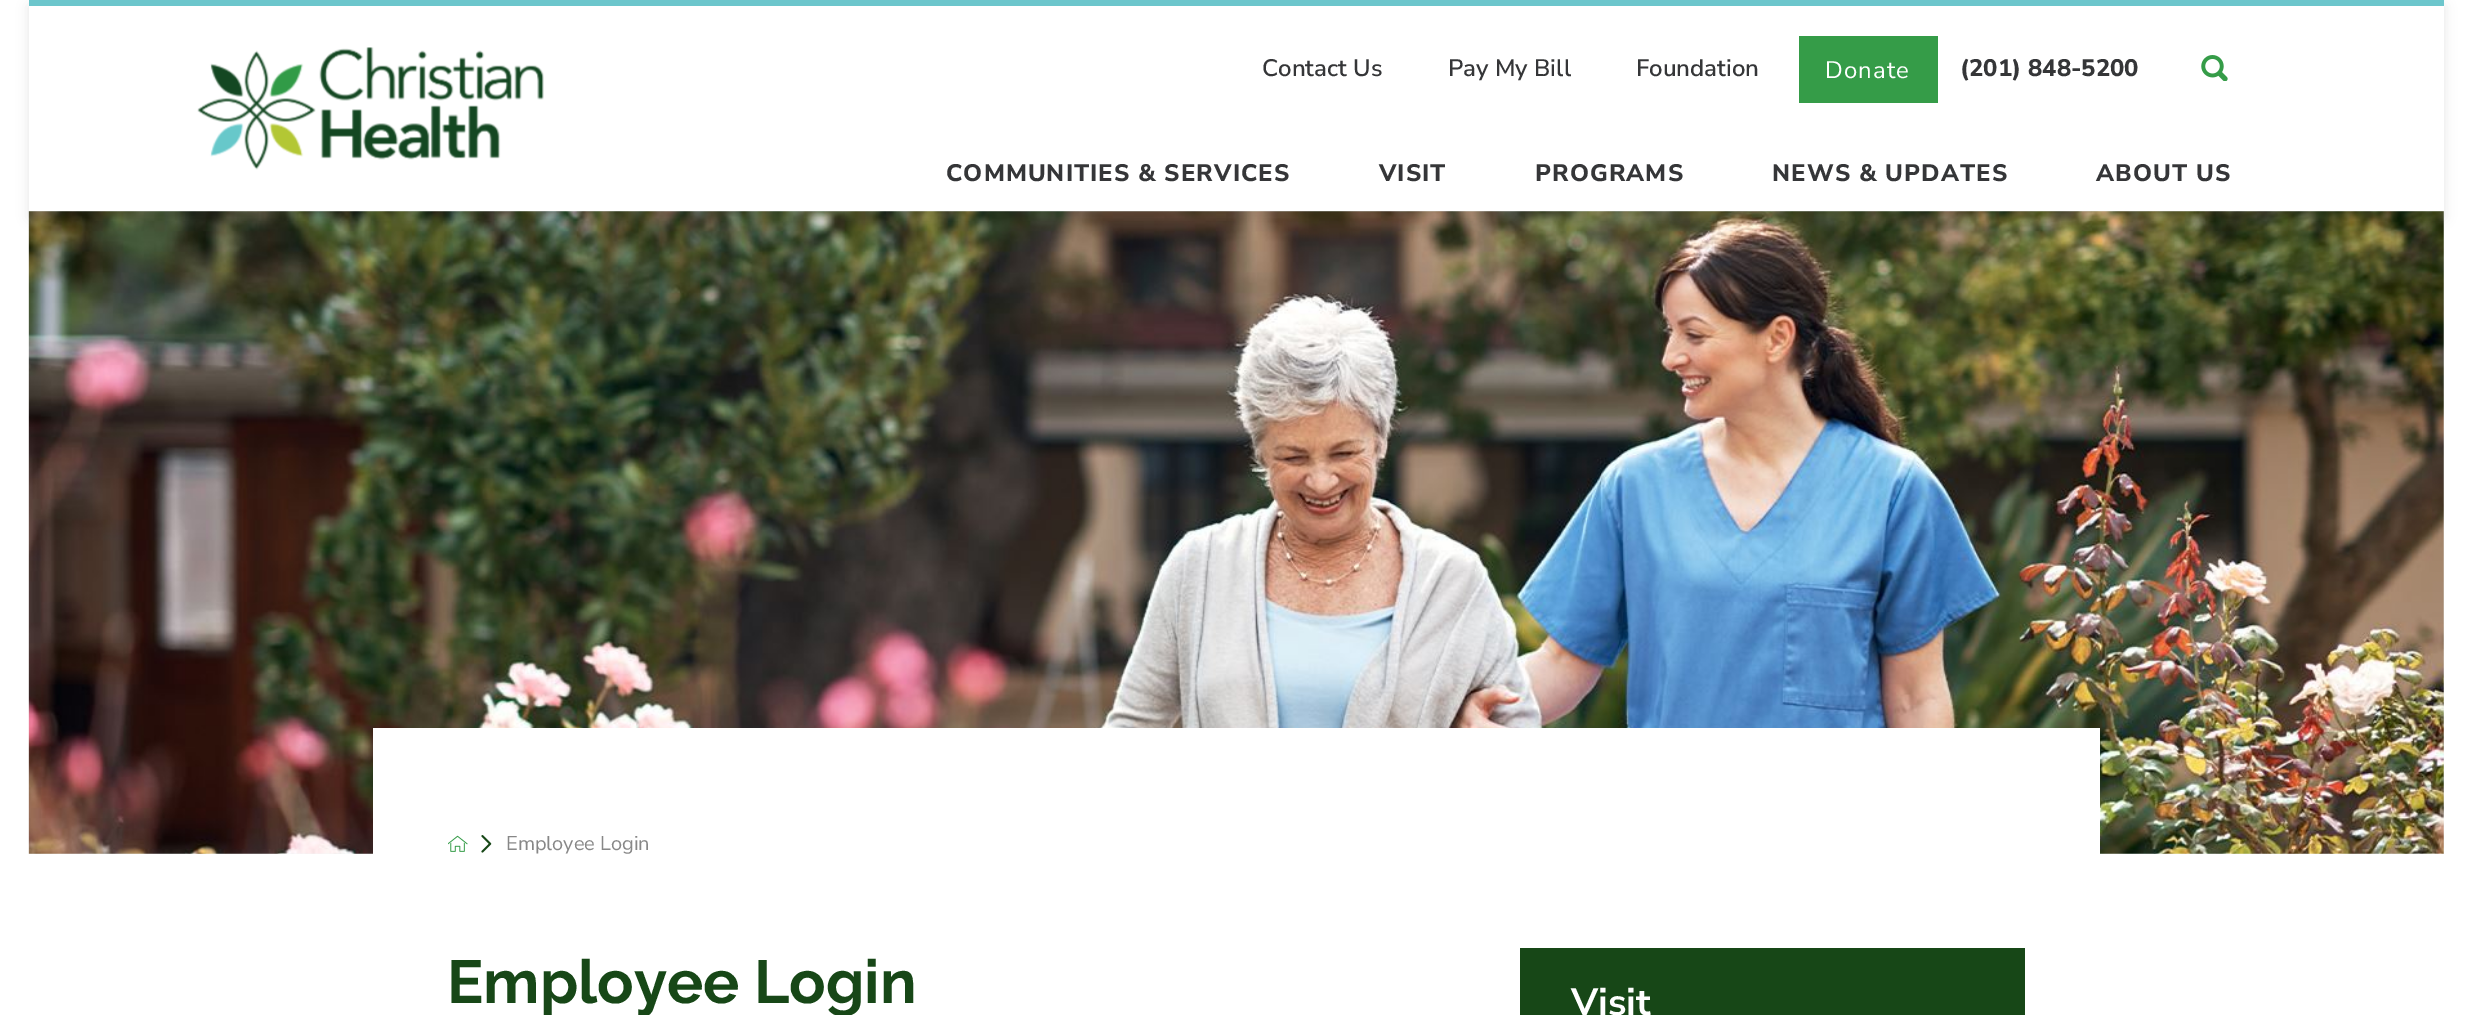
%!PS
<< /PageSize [2472 1015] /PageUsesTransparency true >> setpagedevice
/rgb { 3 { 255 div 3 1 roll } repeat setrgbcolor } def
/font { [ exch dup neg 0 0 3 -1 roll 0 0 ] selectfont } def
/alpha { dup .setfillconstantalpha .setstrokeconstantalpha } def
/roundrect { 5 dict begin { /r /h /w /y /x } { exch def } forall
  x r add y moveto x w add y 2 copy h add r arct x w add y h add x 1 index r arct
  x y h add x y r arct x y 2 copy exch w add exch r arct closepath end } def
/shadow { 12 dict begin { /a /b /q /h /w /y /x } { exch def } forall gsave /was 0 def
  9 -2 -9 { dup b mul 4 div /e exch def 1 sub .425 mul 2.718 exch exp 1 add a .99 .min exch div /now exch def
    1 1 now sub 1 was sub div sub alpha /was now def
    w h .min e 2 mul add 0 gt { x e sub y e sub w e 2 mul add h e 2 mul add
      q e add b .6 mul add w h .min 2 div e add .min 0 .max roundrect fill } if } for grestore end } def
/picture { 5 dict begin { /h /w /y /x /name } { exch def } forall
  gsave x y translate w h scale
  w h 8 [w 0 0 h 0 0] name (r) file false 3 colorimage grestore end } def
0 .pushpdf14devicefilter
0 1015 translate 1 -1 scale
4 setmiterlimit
255 255 255 rgb
0 0 2472 1015 rectfill
239 250 250 rgb
29 211 2415 643 rectfill
(img/3.rgb) 28 211 2416 643 picture
0 0 0 rgb
29 6 2415 212 0 6 0.1 shadow
255 255 255 rgb
29 6 2415 205 rectfill
108 198 204 rgb
29 0 2415 6 rectfill
(img/1.rgb) 197 47 347 123 picture
53 156 72 rgb
1799 36 139 67 rectfill
(img/2.rgb) 2201 55 27 26 picture
255 255 255 rgb
373 728 1727 126 rectfill
(img/4.rgb) 448 835 20 17 picture
(img/5.rgb) 481 835 11 18 picture
23 71 23 rgb
1520 948 505 67 rectfill
/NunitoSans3-ExtraLight 23.9 font
53 54 56 rgb
[
  [(Contact Us) 1262 76]
  [(Pay My Bill) 1448 76]
  [(Foundation) 1636 76]
] { aload pop moveto show } forall
/NunitoSans-ExtraLight 23.9 font
255 255 255 rgb
1825 78 moveto 1.1 0 (Donate) ashow
/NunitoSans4-ExtraLight 23.9 font
53 54 56 rgb
1960 76 moveto (\(201\) 848-5200) show
946 181 moveto 1.1 0 (COMMUNITIES & SERVICES) ashow
1379 181 moveto 1.1 0 (VISIT) ashow
1535 181 moveto 1.1 0 (PROGRAMS) ashow
1772 181 moveto 1.1 0 (NEWS & UPDATES) ashow
2096 181 moveto 1.1 0 (ABOUT US) ashow
/NunitoSans-ExtraLight 20 font
135 135 135 rgb
506 850 moveto (Employee Login) show
/Raleway-Thin 60.5 font
23 71 23 rgb
447 1003 moveto (Employee Login) show
/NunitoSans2-ExtraLight 38 font
255 255 255 rgb
1571 1015 moveto (Visit) show
.poppdf14devicefilter showpage
